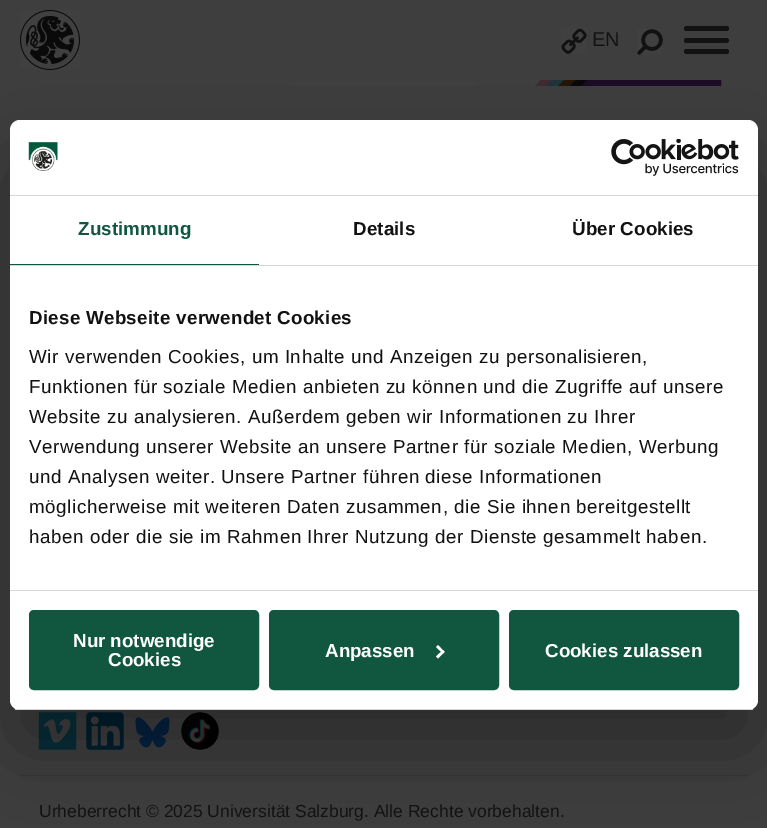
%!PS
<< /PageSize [767 828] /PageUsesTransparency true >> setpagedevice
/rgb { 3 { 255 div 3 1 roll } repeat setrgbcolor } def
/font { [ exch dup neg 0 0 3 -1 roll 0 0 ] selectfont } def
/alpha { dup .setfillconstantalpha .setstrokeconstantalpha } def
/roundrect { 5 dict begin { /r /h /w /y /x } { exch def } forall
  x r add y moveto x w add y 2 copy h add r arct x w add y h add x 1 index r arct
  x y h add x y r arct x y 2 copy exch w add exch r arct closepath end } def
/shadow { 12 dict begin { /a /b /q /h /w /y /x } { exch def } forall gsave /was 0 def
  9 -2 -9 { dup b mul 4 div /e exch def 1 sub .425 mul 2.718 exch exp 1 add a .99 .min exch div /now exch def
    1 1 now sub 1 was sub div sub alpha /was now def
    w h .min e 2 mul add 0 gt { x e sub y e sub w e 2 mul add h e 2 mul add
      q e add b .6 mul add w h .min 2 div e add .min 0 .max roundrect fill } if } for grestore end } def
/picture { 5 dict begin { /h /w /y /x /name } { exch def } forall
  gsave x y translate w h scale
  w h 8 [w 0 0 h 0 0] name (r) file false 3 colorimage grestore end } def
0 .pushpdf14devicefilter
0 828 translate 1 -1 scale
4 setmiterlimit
62 62 62 rgb
0 0 767 828 rectfill
(img/1.rgb) 20 10 60 60 picture
(img/2.rgb) 561 28 26 26 picture
(img/3.rgb) 637 29 26 26 picture
18 18 18 rgb
684 26 45 5 2.5 roundrect fill
684 38 45 5 2.5 roundrect fill
684 49 45 5 2.5 roundrect fill
(img/4.rgb) 290 80 187 6 picture
(img/5.rgb) 531 80 191 6 picture
(img/6.rgb) 38 712 39 38 picture
(img/7.rgb) 86 712 38 38 picture
(img/8.rgb) 135 717 35 31 picture
(img/9.rgb) 181 712 38 38 picture
54 54 54 rgb
20 775 728 1 rectfill
0 0 0 rgb
10 160 748 590 10 42.5 0.3 shadow
255 255 255 rgb
10 120 748 590 10 roundrect fill
214 214 214 rgb
10 195 748 1 rectfill
(img/10.rgb) 28 142 30 29 picture
(img/11.rgb) 611 139 128 37 picture
[
  [10 265 748 1 214 214 214]
  [10 264 249 1 17 87 64]
  [10 590 748 1 214 214 214]
] { aload pop rgb rectfill } forall
gsave
10 120 748 590 10 roundrect clip newpath
10 709 748 1 rectfill
grestore
17 87 64 rgb
30.5 611.5 227 77 3.5 roundrect gsave fill grestore
3 setlinewidth
stroke
270.5 611.5 227 77 3.5 roundrect gsave fill grestore
stroke
255 255 255 rgb
438 645 moveto 444.5 652 lineto 443 653.5 lineto 436 647 lineto closepath fill
443 650 moveto 444.5 652 lineto 438 658.5 lineto 436 656.5 lineto closepath fill
17 87 64 rgb
510.5 611.5 227 77 3.5 roundrect gsave fill grestore
stroke
/LiberationSans-Regular 20 font
18 18 18 rgb
592 46 moveto (EN) show
/LiberationSans-Regular 17.5 font
39 817 moveto (Urheberrecht © 2025 Universität Salzburg. Alle Rechte vorbehalten.) show
/LiberationSans-Bold 18.75 font
17 87 64 rgb
78 235 moveto 0.1 0 (Zustimmung) ashow
18 18 18 rgb
353 235 moveto 0.1 0 (Details) ashow
572 235 moveto 0.1 0 (Über Cookies) ashow
29 324 moveto 0.3 0 (Diese Webseite verwendet Cookies) ashow
/LiberationSans-Regular 18.75 font
29 363 moveto 0.62 0 (Wir verwenden Cookies, um Inhalte und Anzeigen zu personalisieren,) ashow
29 393 moveto 0.62 0 (Funktionen für soziale Medien anbieten zu können und die Zugriffe auf unsere) ashow
29 423 moveto 0.62 0 (Website zu analysieren. Außerdem geben wir Informationen zu Ihrer) ashow
29 453 moveto 0.62 0 (Verwendung unserer Website an unsere Partner für soziale Medien, Werbung) ashow
29 483 moveto 0.62 0 (und Analysen weiter. Unsere Partner führen diese Informationen) ashow
29 513 moveto 0.62 0 (möglicherweise mit weiteren Daten zusammen, die Sie ihnen bereitgestellt) ashow
29 543 moveto 0.62 0 (haben oder die sie im Rahmen Ihrer Nutzung der Dienste gesammelt haben.) ashow
/LiberationSans-Bold 18.75 font
255 255 255 rgb
[
  [(Nur notwendige) 73 647]
  [(Cookies) 108 666]
  [(Anpassen) 325 657]
  [(Cookies zulassen) 545 657]
] { aload pop moveto show } forall
.poppdf14devicefilter showpage
